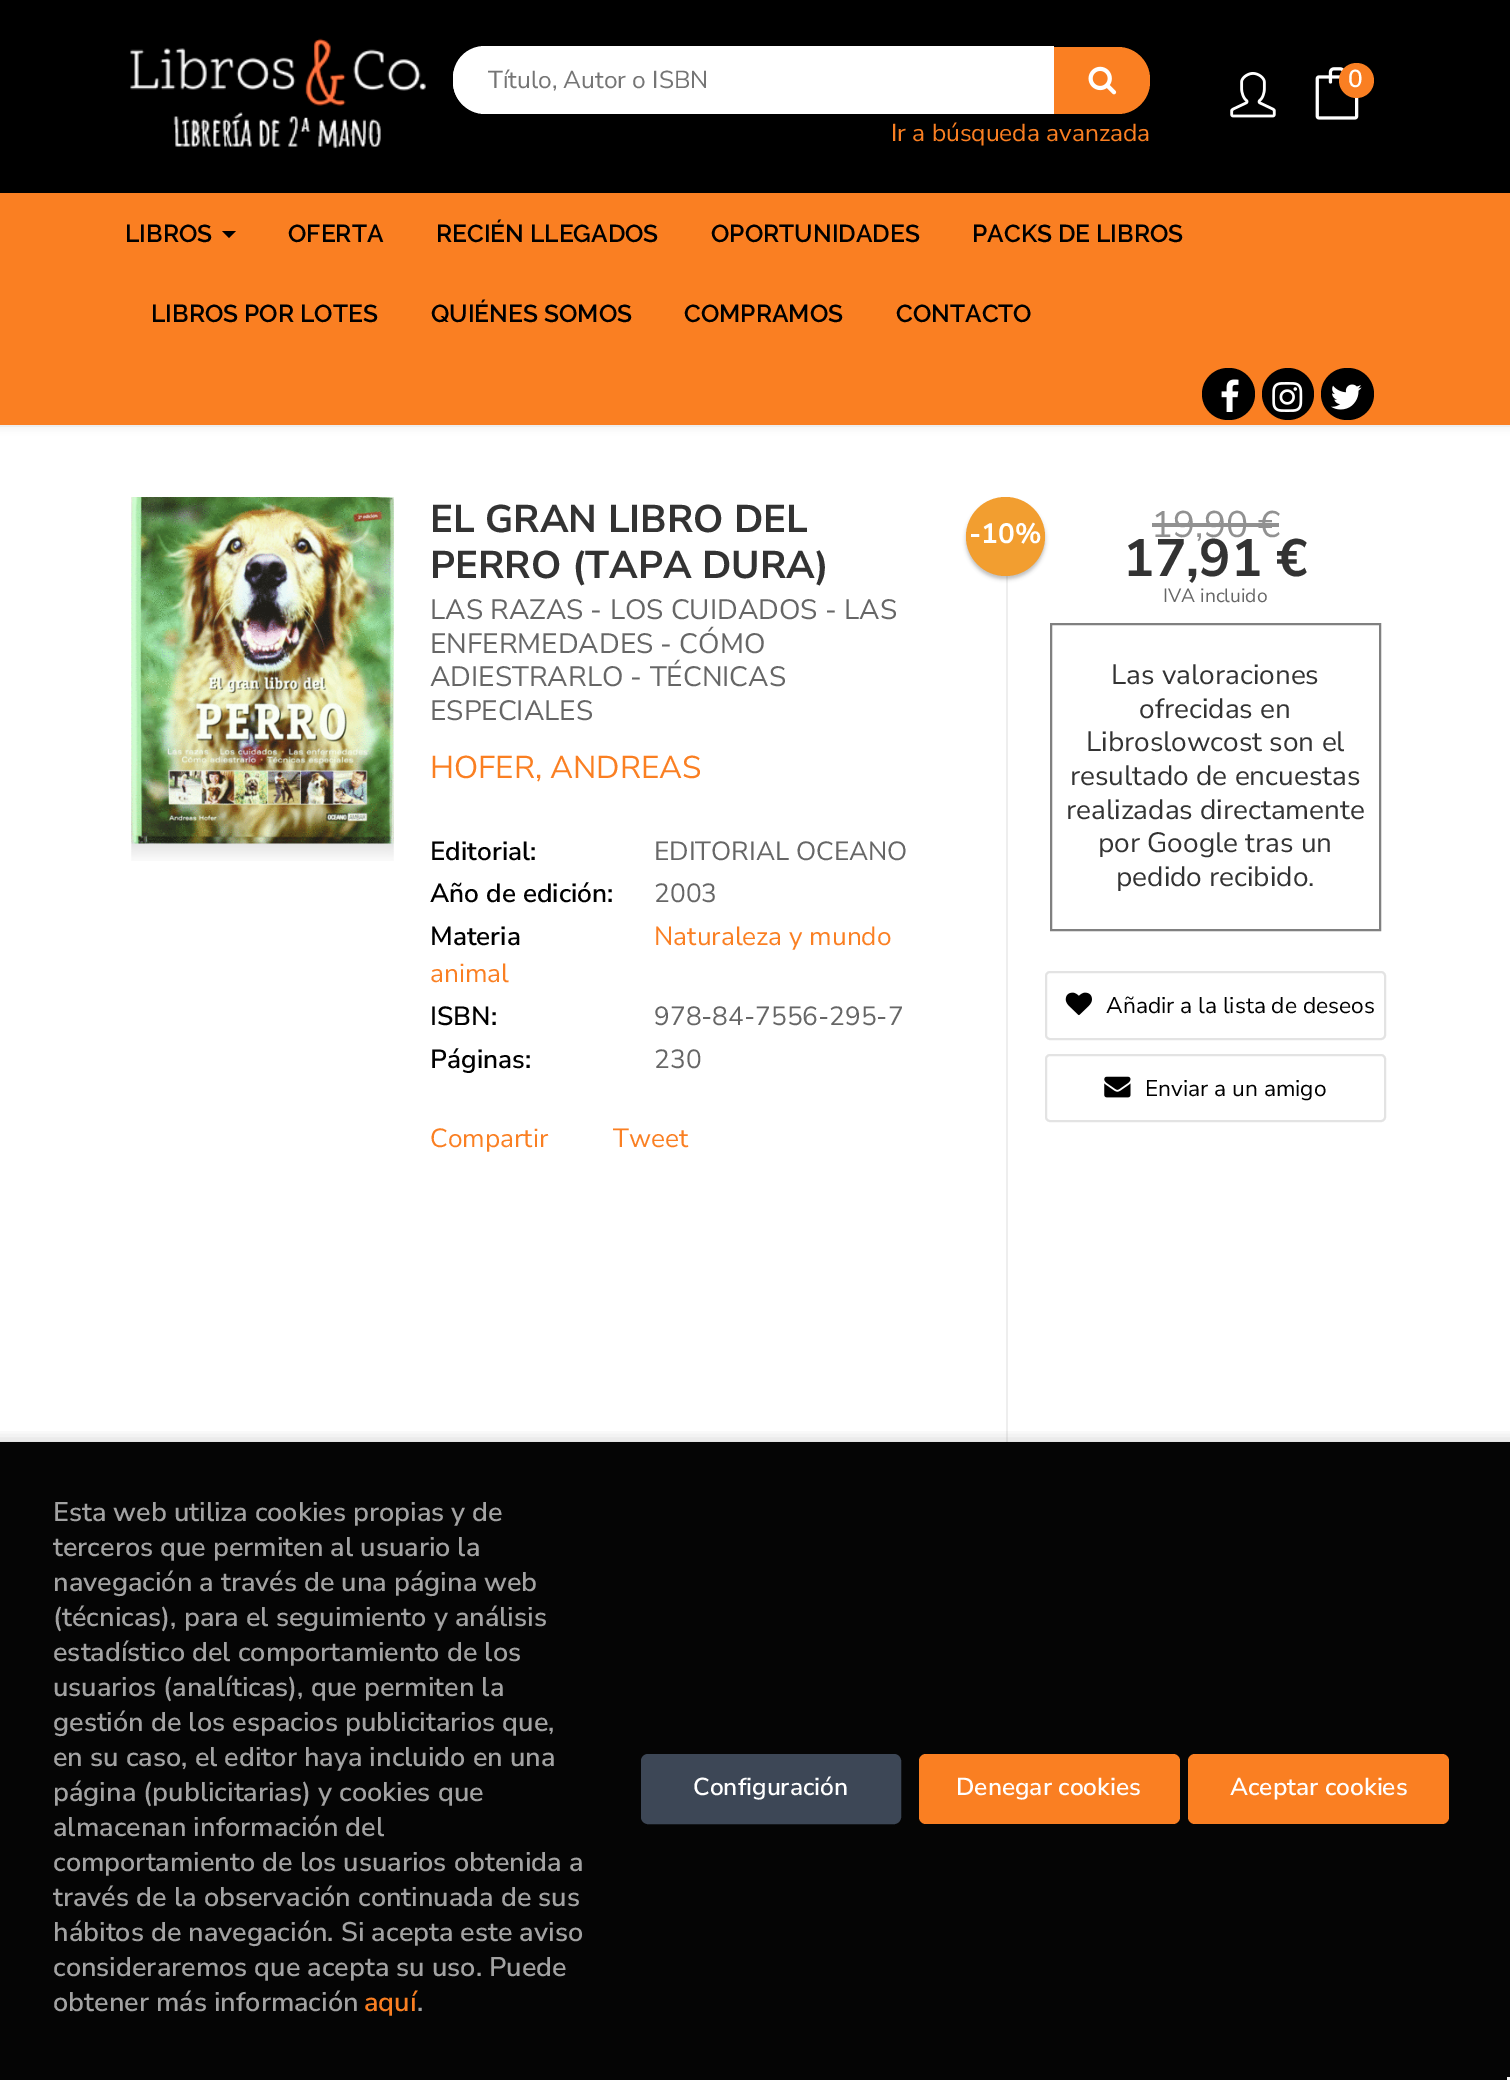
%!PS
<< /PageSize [1510 2080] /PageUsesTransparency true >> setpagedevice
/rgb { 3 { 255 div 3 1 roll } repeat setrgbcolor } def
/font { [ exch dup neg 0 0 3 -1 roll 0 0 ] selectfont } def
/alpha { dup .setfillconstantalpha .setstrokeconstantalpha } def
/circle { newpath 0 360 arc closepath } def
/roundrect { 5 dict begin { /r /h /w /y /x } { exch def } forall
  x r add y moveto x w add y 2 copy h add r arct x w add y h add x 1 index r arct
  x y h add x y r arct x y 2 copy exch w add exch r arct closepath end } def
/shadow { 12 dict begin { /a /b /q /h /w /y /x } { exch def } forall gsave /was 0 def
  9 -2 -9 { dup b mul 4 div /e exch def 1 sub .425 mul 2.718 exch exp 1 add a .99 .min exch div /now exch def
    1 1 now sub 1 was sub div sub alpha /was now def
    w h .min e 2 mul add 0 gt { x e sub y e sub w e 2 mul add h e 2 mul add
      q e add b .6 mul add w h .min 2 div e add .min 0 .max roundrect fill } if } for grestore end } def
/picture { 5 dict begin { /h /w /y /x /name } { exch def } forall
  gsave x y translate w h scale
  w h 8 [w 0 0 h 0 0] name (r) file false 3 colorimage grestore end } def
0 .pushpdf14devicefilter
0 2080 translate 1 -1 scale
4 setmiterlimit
255 255 255 rgb
0 0 1510 2080 rectfill
5 5 5 rgb
0 1442 1510 638 rectfill
0 0 0 rgb
-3 -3 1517 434 0 3.5 0.04 shadow
0 0 1510 193 rectfill
(img/1.rgb) 130 38 296 111 picture
255 255 255 rgb
485 47 moveto 1054 47 lineto 1054 114 lineto 485 114 lineto 467.5 114 453 99.5 453 82 curveto 453 79 lineto 453 61.5 467.5 47 485 47 curveto closepath fill
485 46 moveto 1054 46 lineto 1054 113 lineto 485 113 lineto 467 113 453 99 453 81 curveto 453 78 lineto 453 60 467 46 485 46 curveto closepath 485 50 moveto 1054 50 lineto 1054 109 lineto 485 109 lineto 479 109 474 108 469 105 curveto 446 89 456 50 485 50 curveto closepath eofill
250 127 34 rgb
1054 47 moveto 1118 47 lineto 1135.5 47 1150 61.5 1150 79 curveto 1150 82 lineto 1150 99.5 1135.5 114 1118 114 curveto 1054 114 lineto closepath fill
(img/2.rgb) 1088 66 29 29 picture
(img/3.rgb) 1230 72 46 46 picture
(img/4.rgb) 1315 67 44 53 picture
1356.5 80.5 17.5 circle fill
0 193 1510 232 rectfill
238 238 238 rgb
0 425 1510 2 rectfill
0 0 0 rgb
222 231 moveto 236 231 lineto 229 238 lineto closepath fill
1202 368 53 52 26 roundrect fill
(img/5.rgb) 1221 379 18 33 picture
1288 394 26 circle fill
(img/6.rgb) 1272 382 31 30 picture
1321 368 53 52 26 roundrect fill
(img/7.rgb) 1331 384 31 26 picture
238 238 238 rgb
1006 497 2 945 rectfill
(img/9.rgb) 131 797 263 64 picture
(img/8.rgb) 131 497 263 347 picture
0 0 0 rgb
966 501 79 78 39 2 0.25 shadow
242 158 48 rgb
1005.5 536.5 39.5 circle fill
145 145 145 rgb
1152 523 127 4 rectfill
128 128 128 rgb
2 setlinewidth
1051 624 329 306 rectstroke
227 227 227 rgb
1046 972 339 67 4 roundrect stroke
(img/10.rgb) 1065 992 27 24 picture
1046 1055 339 66 4 roundrect stroke
(img/11.rgb) 1104 1076 27 22 picture
gsave
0 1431 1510 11 rectclip
0 0 0 rgb
-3 1439 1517 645 0 7 0.15 shadow
grestore
61 71 86 rgb
642 1755 258 68 6 roundrect gsave fill grestore
stroke
250 127 34 rgb
919 1754 261 70 7 roundrect fill
1188 1754 261 70 7 roundrect fill
245 245 245 rgb
1507 2077 3 3 rectfill
/NunitoSans-Regular 24.5 font
117 117 117 rgb
488 88 moveto (Título, Autor o ISBN) show
250 127 34 rgb
891 141 moveto (Ir a búsqueda avanzada) show
/NunitoSans-SemiBold 24.5 font
255 255 255 rgb
1348 87 moveto (0) show
/Raleway-SemiBold 24.5 font
0 0 0 rgb
[
  [(LIBROS) 125 242]
  [(OFERTA) 288 242]
  [(RECIÉN LLEGADOS) 436 242]
  [(OPORTUNIDADES) 711 242]
  [(PACKS DE LIBROS) 972 242]
  [(LIBROS POR LOTES) 151 322]
  [(QUIÉNES SOMOS) 431 322]
  [(COMPRAMOS) 684 322]
  [(CONTACTO) 896 322]
] { aload pop moveto show } forall
/NunitoSans-Bold 38.5 font
51 51 51 rgb
430 532 moveto (EL GRAN LIBRO DEL) show
430 578 moveto (PERRO \(TAPA DURA\)) show
/NunitoSans-Regular 28 font
102 102 102 rgb
[
  [(LAS RAZAS - LOS CUIDADOS - LAS) 430 619]
  [(ENFERMEDADES - CÓMO) 430 653]
  [(ADIESTRARLO - TÉCNICAS) 430 686]
  [(ESPECIALES) 430 720]
] { aload pop moveto show } forall
/NunitoSans-Regular 31.5 font
250 127 34 rgb
430 778 moveto (HOFER, ANDREAS) show
/NunitoSans-SemiBold 26.25 font
0 0 0 rgb
430 860 moveto (Editorial:) show
/NunitoSans-Regular 26.25 font
102 102 102 rgb
654 860 moveto (EDITORIAL OCEANO) show
/NunitoSans-SemiBold 26.25 font
0 0 0 rgb
430 902 moveto (Año de edición:) show
/NunitoSans-Regular 26.25 font
102 102 102 rgb
654 902 moveto (2003) show
250 127 34 rgb
654 945 moveto (Naturaleza y mundo) show
430 982 moveto (animal) show
/NunitoSans-SemiBold 26.25 font
0 0 0 rgb
430 945 moveto (Materia) show
430 1025 moveto (ISBN:) show
/NunitoSans-Regular 26.25 font
102 102 102 rgb
654 1025 moveto (978-84-7556-295-7) show
/NunitoSans-SemiBold 26.25 font
0 0 0 rgb
430 1068 moveto (Páginas:) show
/NunitoSans-Regular 26.25 font
102 102 102 rgb
654 1068 moveto (230) show
250 127 34 rgb
430 1147 moveto (Compartir) show
613 1147 moveto (Tweet) show
/NunitoSans-Bold 28 font
255 255 255 rgb
969 543 moveto (-10%) show
/NunitoSans-Regular 37 font
145 145 145 rgb
1151 537 moveto (19,90 €) show
/NunitoSans-Bold 52.5 font
51 51 51 rgb
1123 576 moveto (17,91 €) show
/NunitoSans-Regular 19.25 font
102 102 102 rgb
1163 602 moveto (IVA incluido) show
/NunitoSans-Regular 28 font
51 51 51 rgb
[
  [(Las valoraciones) 1111 684]
  [(ofrecidas en) 1139 718]
  [(Libroslowcost son el) 1086 751]
  [(resultado de encuestas) 1070 785]
  [(realizadas directamente) 1066 819]
  [(por Google tras un) 1098 852]
  [(pedido recibido.) 1116 886]
] { aload pop moveto show } forall
/NunitoSans-Regular 22.75 font
0 0 0 rgb
1106 1013 moveto (Añadir a la lista de deseos) show
1145 1096 moveto (Enviar a un amigo) show
/NunitoSans-SemiBold 27 font
162 162 162 rgb
[
  [(Esta web utiliza cookies propias y de) 53 1521]
  [(terceros que permiten al usuario la) 53 1556]
  [(navegación a través de una página web) 53 1591]
  [(\(técnicas\), para el seguimiento y análisis) 53 1626]
  [(estadístico del comportamiento de los) 53 1661]
  [(usuarios \(analíticas\), que permiten la) 53 1696]
  [(gestión de los espacios publicitarios que,) 53 1731]
  [(en su caso, el editor haya incluido en una) 53 1766]
  [(página \(publicitarias\) y cookies que) 53 1801]
  [(almacenan información del) 53 1836]
  [(comportamiento de los usuarios obtenida a) 53 1871]
  [(través de la observación continuada de sus) 53 1906]
  [(hábitos de navegación. Si acepta este aviso) 53 1941]
  [(consideraremos que acepta su uso. Puede) 53 1976]
  [(obtener más información) 53 2011]
] { aload pop moveto show } forall
250 127 34 rgb
364 2011 moveto (aquí) show
162 162 162 rgb
417 2011 moveto (.) show
/NunitoSans-SemiBold 24.5 font
255 255 255 rgb
[
  [(Configuración) 693 1795]
  [(Denegar cookies) 956 1795]
  [(Aceptar cookies) 1230 1795]
] { aload pop moveto show } forall
.poppdf14devicefilter showpage
